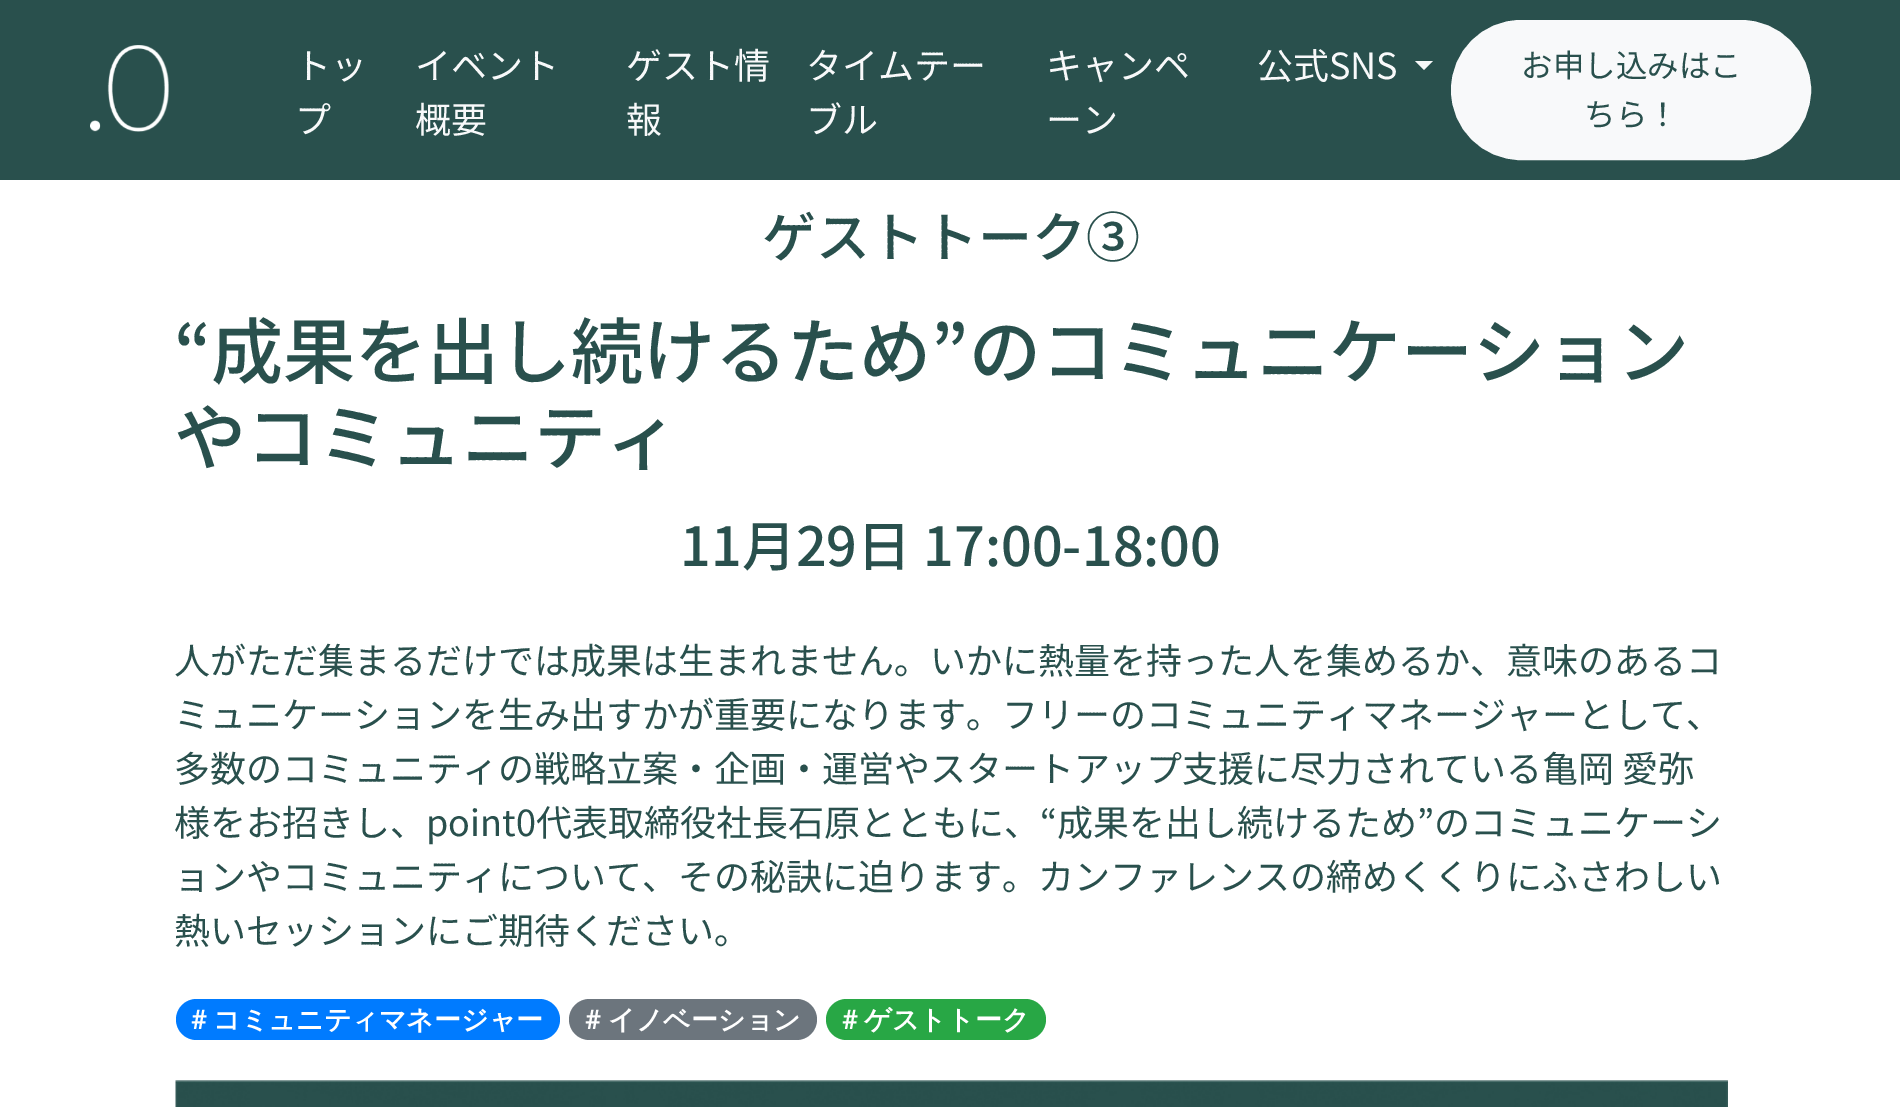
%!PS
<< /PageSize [1900 1107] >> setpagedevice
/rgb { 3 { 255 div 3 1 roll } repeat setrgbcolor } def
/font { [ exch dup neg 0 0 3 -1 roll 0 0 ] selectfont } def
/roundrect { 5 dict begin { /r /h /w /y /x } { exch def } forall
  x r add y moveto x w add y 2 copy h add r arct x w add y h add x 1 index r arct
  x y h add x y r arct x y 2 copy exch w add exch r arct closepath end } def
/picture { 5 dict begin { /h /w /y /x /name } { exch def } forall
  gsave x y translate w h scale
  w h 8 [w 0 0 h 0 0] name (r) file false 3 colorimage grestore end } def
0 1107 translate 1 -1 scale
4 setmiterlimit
255 255 255 rgb
0 0 1900 1107 rectfill
41 80 77 rgb
0 0 1900 180 rectfill
(img/1.rgb) 90 45 79 87 picture
248 249 250 rgb
1415 61 moveto 1433 61 lineto 1424 70 lineto closepath fill
1452 21 358 138 69 roundrect gsave fill grestore
2 setlinewidth
stroke
0 123 255 rgb
176 999 384 41 20.5 roundrect fill
108 117 125 rgb
569 999 248 41 20.5 roundrect fill
40 167 69 rgb
826 999 220 41 20.5 roundrect fill
(img/2.rgb) 175 1080 1553 27 picture
/NotoSansJP-Regular 36 font
248 249 250 rgb
[
  [(トッ) 295 79]
  [(プ) 295 133]
  [(イベント) 415 79]
  [(概要) 415 133]
  [(ゲスト情) 626 79]
  [(報) 626 133]
  [(タイムテー) 806 79]
  [(ブル) 806 133]
  [(キャンペ) 1046 79]
  [(ーン) 1046 133]
  [(公式SNS) 1257 79]
] { aload pop moveto show } forall
/NotoSansJP-Regular 31.5 font
41 80 77 rgb
1521 77 moveto (お申し込みはこ) show
1584 126 moveto (ちら！) show
/NotoSansJP-Medium 54 font
762 257 moveto (ゲストトーク③) show
/NotoSansJP-Medium 72 font
174 378 moveto (“成果を出し続けるため”のコミュニケーション) show
174 464 moveto (やコミュニティ) show
/NotoSansJP-Medium 54 font
680 566 moveto (11月29日 17:00-18:00) show
/NotoSansJP-Regular 36 font
[
  [(人がただ集まるだけでは成果は生まれません。いかに熱量を持った人を集めるか、意味のあるコ) 174 674]
  [(ミュニケーションを生み出すかが重要になります。フリーのコミュニティマネージャーとして、) 174 728]
  [(多数のコミュニティの戦略立案・企画・運営やスタートアップ支援に尽力されている亀岡 愛弥) 174 782]
  [(様をお招きし、point0代表取締役社長石原とともに、“成果を出し続けるため”のコミュニケーシ) 174 836]
  [(ョンやコミュニティについて、その秘訣に迫ります。カンファレンスの締めくくりにふさわしい) 174 890]
  [(熱いセッションにご期待ください。) 174 944]
] { aload pop moveto show } forall
/Roboto-Bold 27 font
255 255 255 rgb
191 1029 moveto (#) show
/WenQuanYiZenHei-Bold 27 font
213 1029 moveto (コミュニティマネージャー) show
/Roboto-Bold 27 font
585 1029 moveto (#) show
/WenQuanYiZenHei-Bold 27 font
608 1029 moveto (イノベーション) show
/Roboto-Bold 27 font
842 1029 moveto (#) show
/WenQuanYiZenHei-Bold 27 font
864 1029 moveto (ゲストトーク) show
showpage
